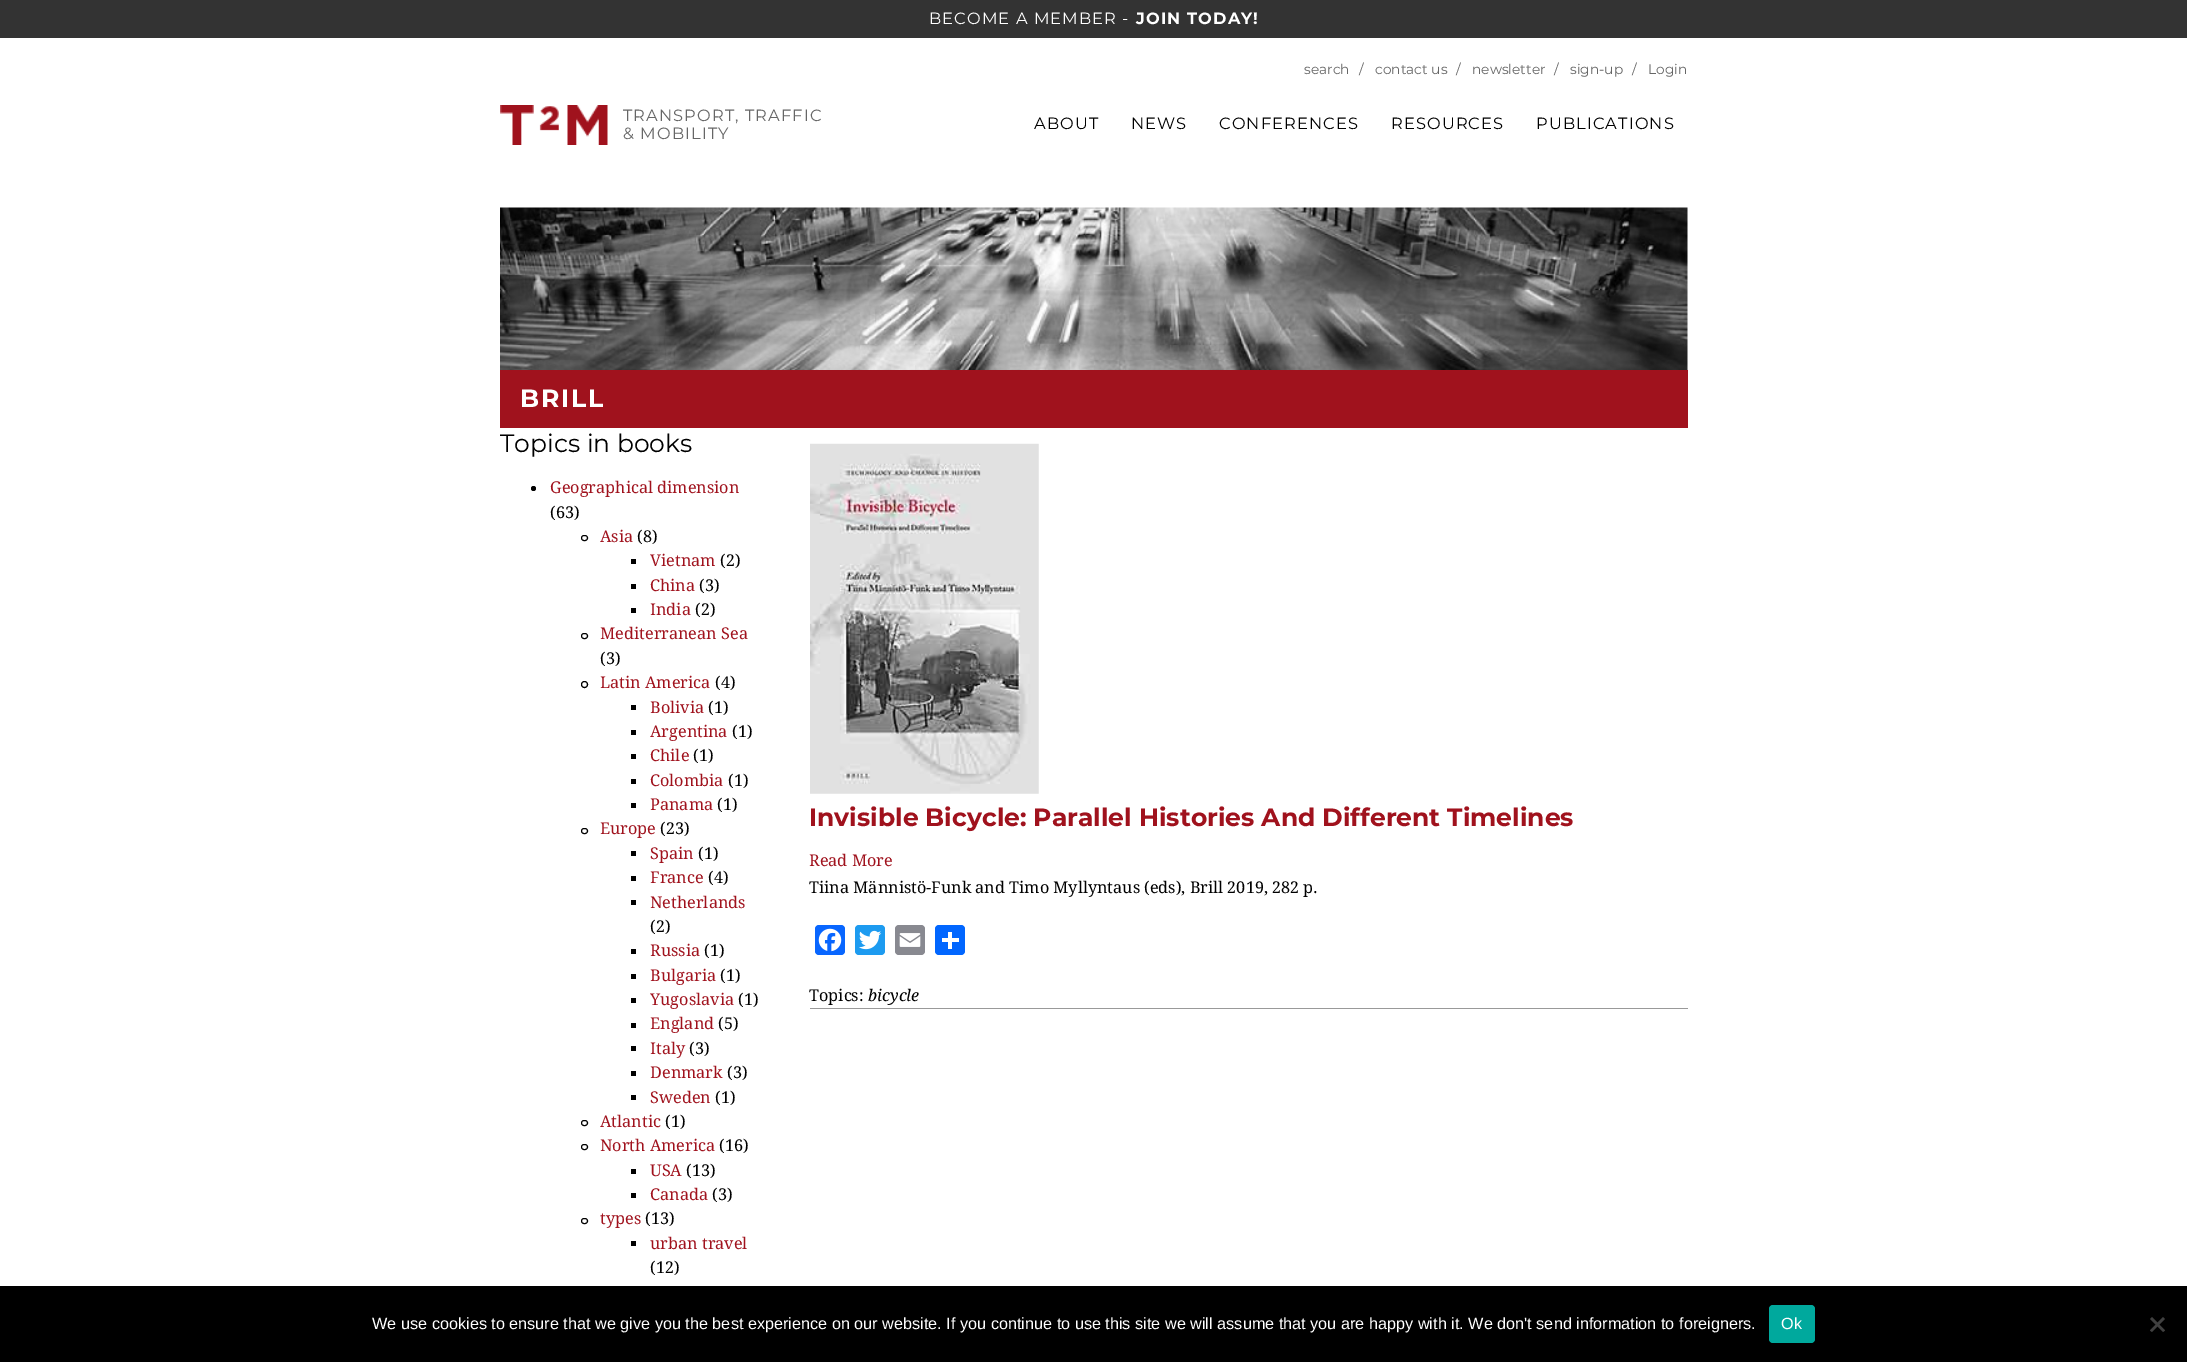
%!PS
<< /PageSize [2187 1362] >> setpagedevice
/rgb { 3 { 255 div 3 1 roll } repeat setrgbcolor } def
/font { [ exch dup neg 0 0 3 -1 roll 0 0 ] selectfont } def
/circle { newpath 0 360 arc closepath } def
/roundrect { 5 dict begin { /r /h /w /y /x } { exch def } forall
  x r add y moveto x w add y 2 copy h add r arct x w add y h add x 1 index r arct
  x y h add x y r arct x y 2 copy exch w add exch r arct closepath end } def
/picture { 5 dict begin { /h /w /y /x /name } { exch def } forall
  gsave x y translate w h scale
  w h 8 [w 0 0 h 0 0] name (r) file false 3 colorimage grestore end } def
0 1362 translate 1 -1 scale
4 setmiterlimit
255 255 255 rgb
0 0 2187 1362 rectfill
51 51 51 rgb
0 0 2187 38 rectfill
(img/1.rgb) 500 105 108 40 picture
(img/2.rgb) 500 207 1188 163 picture
160 18 29 rgb
500 370 1188 58 rectfill
0 0 0 rgb
533.5 488.5 2.5 circle fill
581.5 535.5 6 5 2.5 roundrect stroke
[
  [631 559 5 5 0 0 0]
  [631 584 5 5 0 0 0]
  [631 608 5 5 0 0 0]
] { aload pop rgb rectfill } forall
581.5 633.5 6 5 2.5 roundrect stroke
584.5 684.5 3 circle stroke
[
  [631 705 5 5 0 0 0]
  [631 730 5 5 0 0 0]
  [631 754 5 5 0 0 0]
  [631 779 5 5 0 0 0]
  [631 803 5 5 0 0 0]
] { aload pop rgb rectfill } forall
581.5 828.5 6 5 2.5 roundrect stroke
[
  [631 851 5 5 0 0 0]
  [631 876 5 5 0 0 0]
  [631 900 5 5 0 0 0]
  [631 949 5 5 0 0 0]
  [631 974 5 5 0 0 0]
  [631 998 5 5 0 0 0]
  [631 1023 5 5 0 0 0]
  [631 1046 5 5 0 0 0]
  [631 1071 5 5 0 0 0]
  [631 1095 5 5 0 0 0]
] { aload pop rgb rectfill } forall
581.5 1120.5 6 5 2.5 roundrect stroke
581.5 1144.5 6 5 2.5 roundrect stroke
631 1169 5 5 rectfill
631 1193 5 5 rectfill
581.5 1218.5 6 5 2.5 roundrect stroke
631 1241 5 5 rectfill
153 153 153 rgb
810 1008 878 1 rectfill
(img/3.rgb) 810 443 229 351 picture
8 102 255 rgb
815 925 30 30 4 roundrect fill
(img/4.rgb) 818 928 24 24 picture
29 155 240 rgb
855 925 30 30 4 roundrect fill
(img/5.rgb) 859 930 23 20 picture
136 137 144 rgb
895 925 30 30 4 roundrect fill
(img/6.rgb) 899 933 22 14 picture
1 102 255 rgb
935 925 30 30 4 roundrect fill
[
  [948 932 4 17 255 255 255]
  [942 938 17 4 255 255 255]
  [0 1286 2187 76 0 0 0]
] { aload pop rgb rectfill } forall
0 169 157 rgb
1769 1305 46 38 4 roundrect fill
64 64 64 rgb
2163 1317 moveto 2165 1319 lineto 2152 1332 lineto 2150 1330.5 lineto closepath fill
2150 1319 moveto 2152 1317 lineto 2165 1330.5 lineto 2163 1332 lineto closepath fill
/Montserrat-Regular 16.25 font
255 255 255 rgb
929 24 moveto 1.1 0 (BECOME A MEMBER -) ashow
/Montserrat-Bold 16.25 font
1136 24 moveto 1.1 0 (JOIN TODAY!) ashow
/Montserrat-Regular 16.25 font
102 102 102 rgb
623 121 moveto 1.1 0 (TRANSPORT, TRAFFIC) ashow
623 139 moveto 1.1 0 (& MOBILITY) ashow
/Montserrat-Regular 13.75 font
[
  [(search) 1304 74]
  [(/) 1359 74]
  [(contact us) 1375 74]
  [(/) 1456 74]
  [(newsletter) 1472 74]
  [(/) 1554 74]
  [(sign-up) 1570 74]
  [(/) 1632 74]
  [(Login) 1648 74]
] { aload pop moveto show } forall
/Montserrat-Regular 16.25 font
0 0 0 rgb
1034 129 moveto 1.1 0 (ABOUT) ashow
1131 129 moveto 1.1 0 (NEWS) ashow
1219 129 moveto 1.1 0 (CONFERENCES) ashow
1391 129 moveto 1.1 0 (RESOURCES) ashow
1536 129 moveto 1.1 0 (PUBLICATIONS) ashow
/Montserrat-Bold 25 font
255 255 255 rgb
520 407 moveto 1.75 0 (BRILL) ashow
/Montserrat-Regular 25 font
0 0 0 rgb
500 452 moveto (Topics in books) show
/DroidSerif-Regular 16.25 font
160 18 29 rgb
550 493 moveto (Geographical dimension) show
0 0 0 rgb
550 518 moveto (\(63\)) show
160 18 29 rgb
600 542 moveto (Asia) show
0 0 0 rgb
637 542 moveto (\(8\)) show
160 18 29 rgb
650 566 moveto (Vietnam) show
0 0 0 rgb
720 566 moveto (\(2\)) show
160 18 29 rgb
650 591 moveto (China) show
0 0 0 rgb
699 591 moveto (\(3\)) show
160 18 29 rgb
650 615 moveto (India) show
0 0 0 rgb
695 615 moveto (\(2\)) show
160 18 29 rgb
600 639 moveto (Mediterranean Sea) show
0 0 0 rgb
600 664 moveto (\(3\)) show
160 18 29 rgb
600 688 moveto (Latin America) show
0 0 0 rgb
715 688 moveto (\(4\)) show
160 18 29 rgb
650 713 moveto (Bolivia) show
0 0 0 rgb
708 713 moveto (\(1\)) show
160 18 29 rgb
650 737 moveto (Argentina) show
0 0 0 rgb
732 737 moveto (\(1\)) show
160 18 29 rgb
650 761 moveto (Chile) show
0 0 0 rgb
693 761 moveto (\(1\)) show
160 18 29 rgb
650 786 moveto (Colombia) show
0 0 0 rgb
728 786 moveto (\(1\)) show
160 18 29 rgb
650 810 moveto (Panama) show
0 0 0 rgb
717 810 moveto (\(1\)) show
160 18 29 rgb
600 834 moveto (Europe) show
0 0 0 rgb
660 834 moveto (\(23\)) show
160 18 29 rgb
650 859 moveto (Spain) show
0 0 0 rgb
698 859 moveto (\(1\)) show
160 18 29 rgb
650 883 moveto (France) show
0 0 0 rgb
708 883 moveto (\(4\)) show
160 18 29 rgb
650 908 moveto (Netherlands) show
0 0 0 rgb
650 932 moveto (\(2\)) show
160 18 29 rgb
650 956 moveto (Russia) show
0 0 0 rgb
704 956 moveto (\(1\)) show
160 18 29 rgb
650 981 moveto (Bulgaria) show
0 0 0 rgb
720 981 moveto (\(1\)) show
160 18 29 rgb
650 1005 moveto (Yugoslavia) show
0 0 0 rgb
738 1005 moveto (\(1\)) show
160 18 29 rgb
650 1029 moveto (England) show
0 0 0 rgb
718 1029 moveto (\(5\)) show
160 18 29 rgb
650 1054 moveto (Italy) show
0 0 0 rgb
689 1054 moveto (\(3\)) show
160 18 29 rgb
650 1078 moveto (Denmark) show
0 0 0 rgb
727 1078 moveto (\(3\)) show
160 18 29 rgb
650 1103 moveto (Sweden) show
0 0 0 rgb
715 1103 moveto (\(1\)) show
160 18 29 rgb
600 1127 moveto (Atlantic) show
0 0 0 rgb
665 1127 moveto (\(1\)) show
160 18 29 rgb
600 1151 moveto (North America) show
0 0 0 rgb
719 1151 moveto (\(16\)) show
160 18 29 rgb
650 1176 moveto (USA) show
0 0 0 rgb
686 1176 moveto (\(13\)) show
160 18 29 rgb
650 1200 moveto (Canada) show
0 0 0 rgb
712 1200 moveto (\(3\)) show
160 18 29 rgb
600 1224 moveto (types) show
0 0 0 rgb
645 1224 moveto (\(13\)) show
160 18 29 rgb
650 1249 moveto (urban travel) show
0 0 0 rgb
650 1273 moveto (\(12\)) show
/Montserrat-Bold 25 font
160 18 29 rgb
809 826 moveto (Invisible Bicycle: Parallel Histories And Different Timelines) show
/DroidSerif-Regular 16.25 font
809 866 moveto (Read More) show
0 0 0 rgb
809 893 moveto (Tiina Männistö-Funk and Timo Myllyntaus \(eds\), Brill 2019, 282 p.) show
809 1001 moveto (Topics:) show
/DroidSerif-Italic 16.25 font
868 1001 moveto (bicycle) show
/LiberationSans-Regular 16.25 font
255 255 255 rgb
372 1329 moveto (We use cookies to ensure that we give you the best experience on our website. If you continue to use this site we will assume that you are happy with it. We don't send information to foreigners.) show
1781 1329 moveto (Ok) show
showpage
